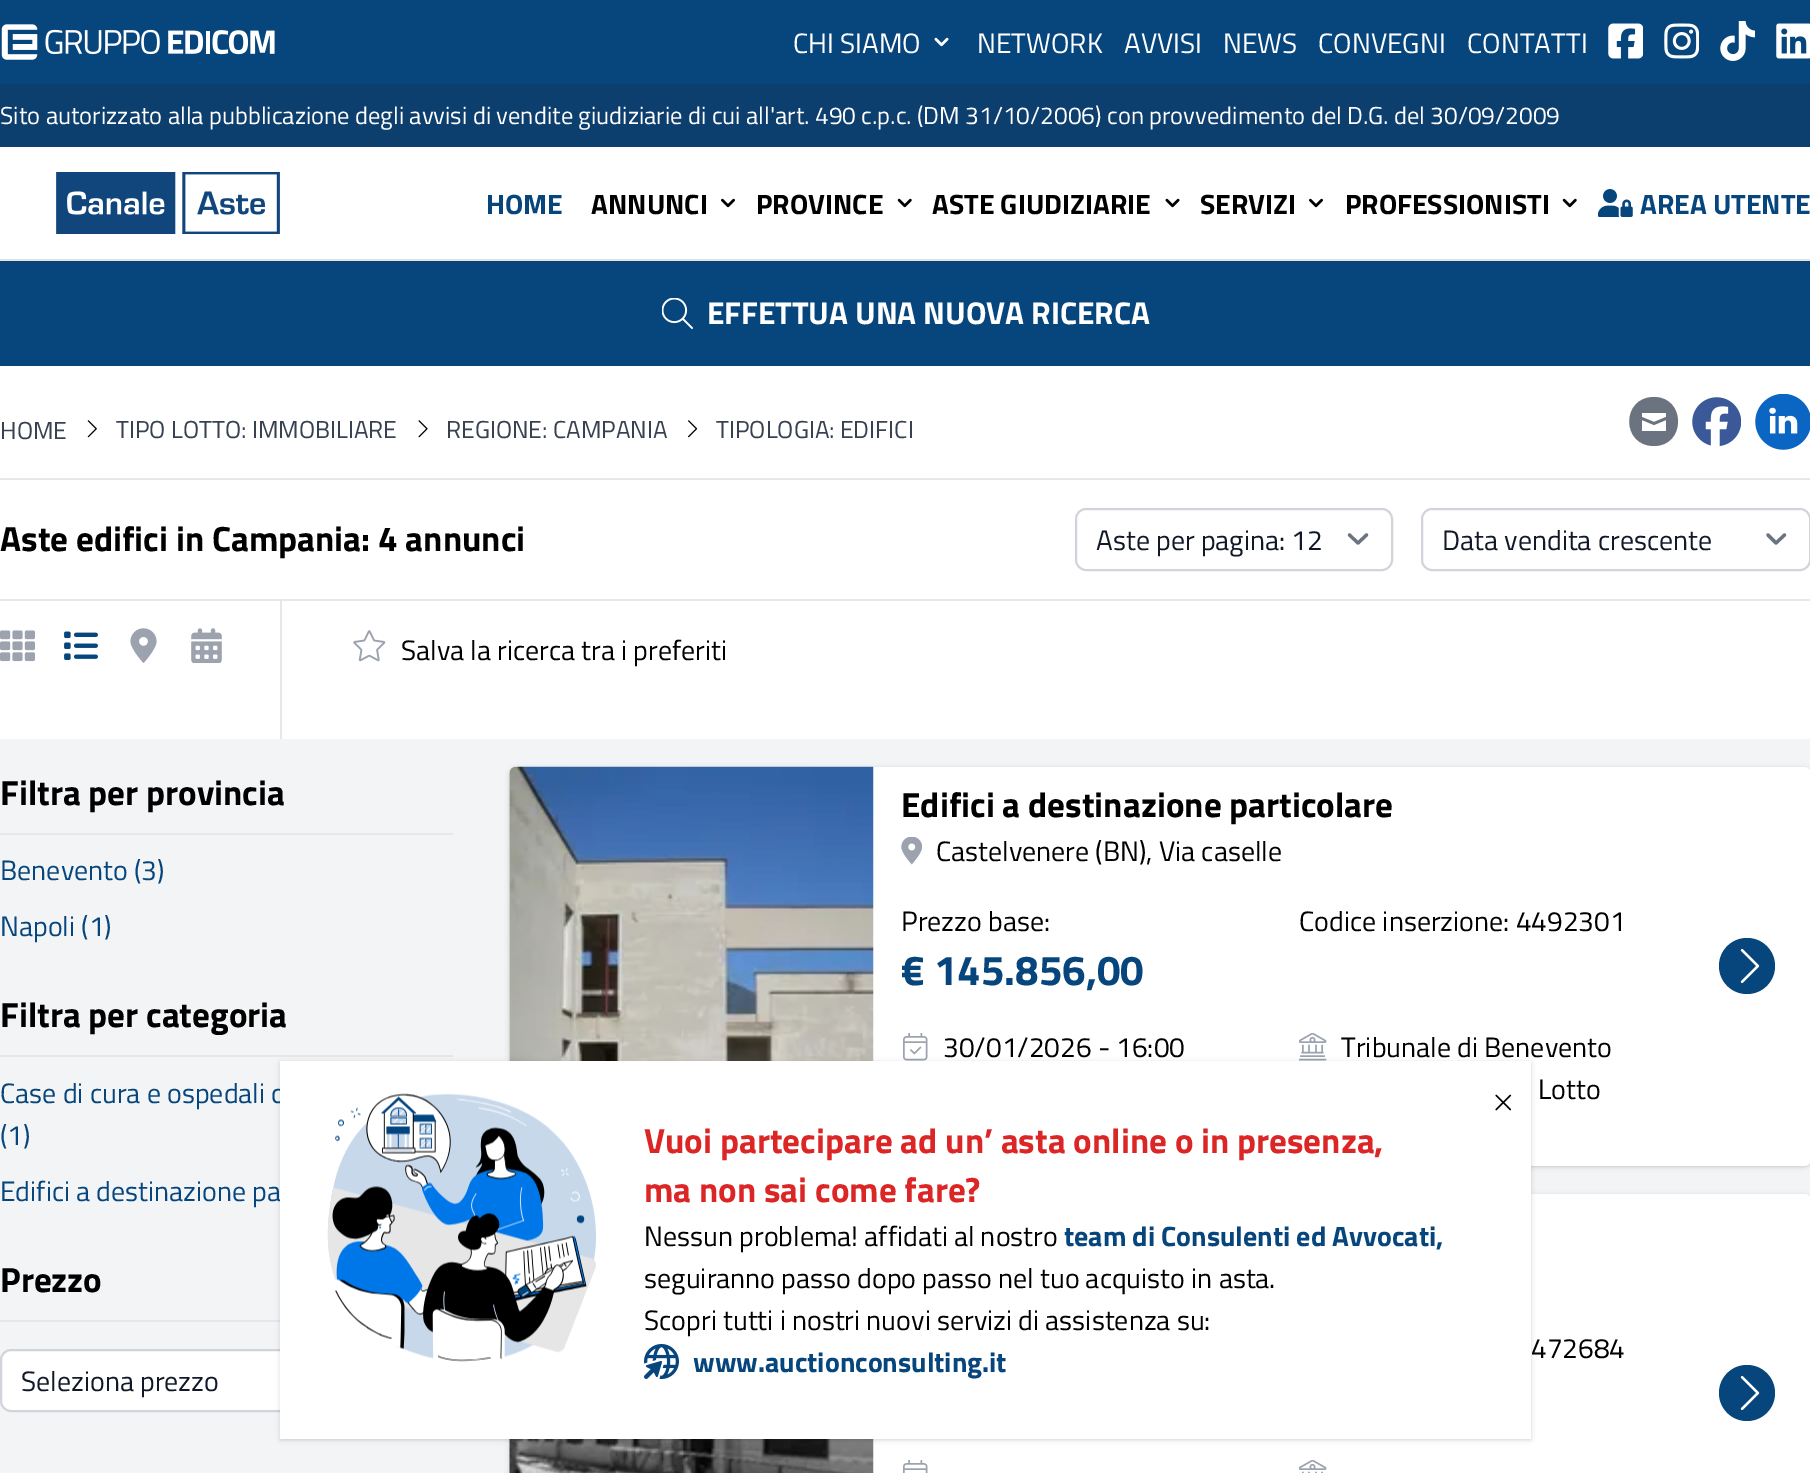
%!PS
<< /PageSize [1810 1473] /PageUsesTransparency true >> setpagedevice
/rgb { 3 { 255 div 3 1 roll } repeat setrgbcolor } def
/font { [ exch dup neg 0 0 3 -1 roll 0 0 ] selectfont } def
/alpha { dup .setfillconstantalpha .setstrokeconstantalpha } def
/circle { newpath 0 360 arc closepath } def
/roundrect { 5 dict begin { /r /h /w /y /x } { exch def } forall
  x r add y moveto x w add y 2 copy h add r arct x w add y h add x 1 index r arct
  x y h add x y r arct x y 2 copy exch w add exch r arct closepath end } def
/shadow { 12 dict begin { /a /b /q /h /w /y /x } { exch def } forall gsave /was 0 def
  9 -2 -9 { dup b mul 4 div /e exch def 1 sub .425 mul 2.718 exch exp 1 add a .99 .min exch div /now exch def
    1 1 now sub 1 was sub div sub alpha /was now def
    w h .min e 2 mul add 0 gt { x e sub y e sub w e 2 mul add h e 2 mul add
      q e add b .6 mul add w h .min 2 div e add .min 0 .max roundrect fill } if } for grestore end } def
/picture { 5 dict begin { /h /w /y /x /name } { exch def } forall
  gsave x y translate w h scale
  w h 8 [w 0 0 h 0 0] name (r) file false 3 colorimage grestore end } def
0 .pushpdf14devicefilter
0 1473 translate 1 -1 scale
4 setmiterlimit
255 255 255 rgb
0 0 1810 1473 rectfill
243 244 246 rgb
0 259 1810 2 rectfill
7 69 125 rgb
0 0 1810 84 rectfill
(img/1.rgb) 1 24 274 36 picture
(img/2.rgb) 934 37 15 10 picture
(img/3.rgb) 1608 23 35 36 picture
(img/4.rgb) 1664 23 35 36 picture
(img/5.rgb) 1720 21 35 40 picture
(img/6.rgb) 1776 23 34 36 picture
12 62 110 rgb
0 84 1810 63 rectfill
7 69 125 rgb
0 261 1810 105 rectfill
gsave
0 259 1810 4 rectclip
0 0 0 rgb
0 149 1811 112 0 2.5 0.1 shadow
grestore
(img/7.rgb) 56 172 224 62 picture
(img/8.rgb) 721 198 14 10 picture
(img/9.rgb) 897 198 15 10 picture
(img/10.rgb) 1165 198 15 10 picture
(img/8.rgb) 1309 198 14 10 picture
(img/9.rgb) 1562 198 15 10 picture
(img/11.rgb) 1598 189 35 28 picture
(img/12.rgb) 662 298 31 31 picture
(img/13.rgb) 87 420 10 18 picture
(img/14.rgb) 418 420 10 18 picture
(img/15.rgb) 688 420 10 18 picture
107 114 128 rgb
1654 446 moveto 1686 446 1686 397 1654 397 curveto 1621 397 1621 446 1654 446 curveto closepath 1642 417 moveto 1642 413 lineto 1666 413 lineto 1666 417 lineto 1654 422 lineto closepath 1654 425 moveto 1666 420 lineto 1666 431 lineto 1642 431 lineto 1642 420 lineto closepath fill
(img/16.rgb) 1692 397 49 49 picture
(img/17.rgb) 1755 394 55 56 picture
229 231 235 rgb
0 478 1810 2 rectfill
107 114 128 rgb
3.2 setlinewidth
1 setlinecap
1 setlinejoin
1349.5 535 moveto 1358 543 lineto 1366.5 535 lineto stroke
209 213 219 rgb
2 setlinewidth
0 setlinecap
0 setlinejoin
1076 509 316 61 10 roundrect stroke
107 114 128 rgb
3.2 setlinewidth
1 setlinecap
1 setlinejoin
1768 535 moveto 1776 543 lineto 1784.5 535 lineto stroke
209 213 219 rgb
2 setlinewidth
0 setlinecap
0 setlinejoin
1422 509 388 61 10 roundrect stroke
229 231 235 rgb
0 599 1810 2 rectfill
280 600 2 139 rectfill
(img/18.rgb) 0 630 35 32 picture
(img/19.rgb) 64 631 34 29 picture
(img/20.rgb) 130 628 27 35 picture
(img/21.rgb) 191 628 31 35 picture
(img/22.rgb) 353 630 33 32 picture
[
  [0 739 1810 734 243 244 246]
  [0 833 453 2 229 231 235]
  [0 1055 453 2 229 231 235]
  [0 1320 280 2 229 231 235]
] { aload pop rgb rectfill } forall
255 255 255 rgb
1 1350 451 61 10 roundrect gsave fill grestore
209 213 219 rgb
stroke
0 0 0 rgb
511 770 1299 396 5 2 0.1 shadow
509 768 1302 399 7 2.5 0.1 shadow
255 255 255 rgb
509 767 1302 399 7 roundrect fill
(img/23.rgb) 509 766 365 295 picture
(img/24.rgb) 901 837 21 28 picture
(img/25.rgb) 903 1033 25 28 picture
(img/26.rgb) 1299 1033 28 28 picture
7 69 125 rgb
1747 966 28 circle fill
(img/27.rgb) 1740 949 20 34 picture
0 0 0 rgb
509 1195 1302 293 7 2.5 0.1 shadow
255 255 255 rgb
509 1194 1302 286 7 roundrect fill
(img/28.rgb) 903 1460 25 13 picture
(img/29.rgb) 1299 1460 28 13 picture
7 69 125 rgb
1747 1393 28 circle fill
(img/27.rgb) 1740 1376 20 34 picture
(img/30.rgb) 509 1439 365 34 picture
0 0 0 rgb
282 1064 1248 375 0 2 0.1 shadow
280 1062 1251 378 0 2.5 0.1 shadow
/TitilliumWeb-Regular 28 font
255 255 255 rgb
[
  [(CHI SIAMO) 793 53]
  [(NETWORK) 977 53]
  [(AVVISI) 1124 53]
  [(NEWS) 1223 53]
  [(CONVEGNI) 1318 53]
  [(CONTATTI) 1467 53]
] { aload pop moveto show } forall
/TitilliumWeb-Regular 24.5 font
0 124 moveto (Sito autorizzato alla pubblicazione degli avvisi di vendite giudiziarie di cui all'art. 490 c.p.c. \(DM 31/10/2006\) con provvedimento del D.G. del 30/09/2009) show
/TitilliumWeb-Bold 28 font
7 69 125 rgb
486 214 moveto (HOME) show
0 0 0 rgb
[
  [(ANNUNCI) 591 214]
  [(PROVINCE) 756 214]
  [(ASTE GIUDIZIARIE) 932 214]
  [(SERVIZI) 1200 214]
  [(PROFESSIONISTI) 1345 214]
] { aload pop moveto show } forall
7 69 125 rgb
1640 214 moveto (AREA UTENTE) show
/TitilliumWeb-Bold 31.5 font
255 255 255 rgb
707 324 moveto (EFFETTUA UNA NUOVA RICERCA) show
/TitilliumWeb-Regular 24.5 font
55 65 81 rgb
[
  [(HOME) 0 439]
  [(TIPO LOTTO: IMMOBILIARE) 116 438]
  [(REGIONE: CAMPANIA) 446 438]
  [(TIPOLOGIA: EDIFICI) 716 438]
] { aload pop moveto show } forall
/TitilliumWeb-Bold 35 font
0 0 0 rgb
0 551 moveto (Aste edifici in Campania: 4 annunci) show
/TitilliumWeb-Regular 28 font
17 24 39 rgb
1096 550 moveto (Aste per pagina: 12) show
1442 550 moveto (Data vendita crescente) show
0 0 0 rgb
401 660 moveto (Salva la ricerca tra i preferiti) show
/TitilliumWeb-Bold 35 font
0 805 moveto (Filtra per provincia) show
/TitilliumWeb-Regular 28 font
7 69 125 rgb
0 880 moveto (Benevento \(3\)) show
0 936 moveto (Napoli \(1\)) show
/TitilliumWeb-Bold 35 font
0 0 0 rgb
0 1027 moveto (Filtra per categoria) show
/TitilliumWeb-Regular 28 font
7 69 125 rgb
[
  [(Case di cura e ospedali c) 0 1103]
  [(\(1\)) 0 1145]
  [(Edifici a destinazione pa) 0 1201]
] { aload pop moveto show } forall
/TitilliumWeb-Bold 35 font
0 0 0 rgb
0 1292 moveto (Prezzo) show
/TitilliumWeb-Regular 28 font
17 24 39 rgb
21 1391 moveto (Seleziona prezzo) show
/TitilliumWeb-Bold 35 font
0 0 0 rgb
901 817 moveto (Edifici a destinazione particolare) show
/TitilliumWeb-Regular 28 font
936 861 moveto (Castelvenere \(BN\), Via caselle) show
901 931 moveto (Prezzo base:) show
/TitilliumWeb-Bold 42 font
7 69 125 rgb
901 985 moveto (€ 145.856,00) show
/TitilliumWeb-Regular 28 font
0 0 0 rgb
[
  [(Codice inserzione: 4492301) 1299 931]
  [(30/01/2026 - 16:00) 943 1057]
  [(Tribunale di Benevento) 1341 1057]
  [(Lotto) 1538 1099]
  [(472684) 1531 1358]
] { aload pop moveto show } forall
255 255 255 rgb
280 1061 1251 378 rectfill
(img/31.rgb) 1495 1094 17 17 picture
(img/32.rgb) 327 1093 269 269 picture
/TitilliumWeb-Bold 35 font
220 38 38 rgb
644 1153 moveto (Vuoi partecipare ad un’ asta online o in presenza,) show
644 1202 moveto (ma non sai come fare?) show
/TitilliumWeb-Regular 28 font
0 0 0 rgb
644 1246 moveto (Nessun problema! affidati al nostro) show
/TitilliumWeb-Bold 28 font
7 69 125 rgb
1064 1246 moveto (team di Consulenti ed Avvocati,) show
/TitilliumWeb-Regular 28 font
0 0 0 rgb
644 1288 moveto (seguiranno passo dopo passo nel tuo acquisto in asta.) show
644 1330 moveto (Scopri tutti i nostri nuovi servizi di assistenza su:) show
(img/33.rgb) 644 1344 35 35 picture
/TitilliumWeb-Bold 28 font
7 69 125 rgb
693 1372 moveto (www.auctionconsulting.it) show
.poppdf14devicefilter showpage
